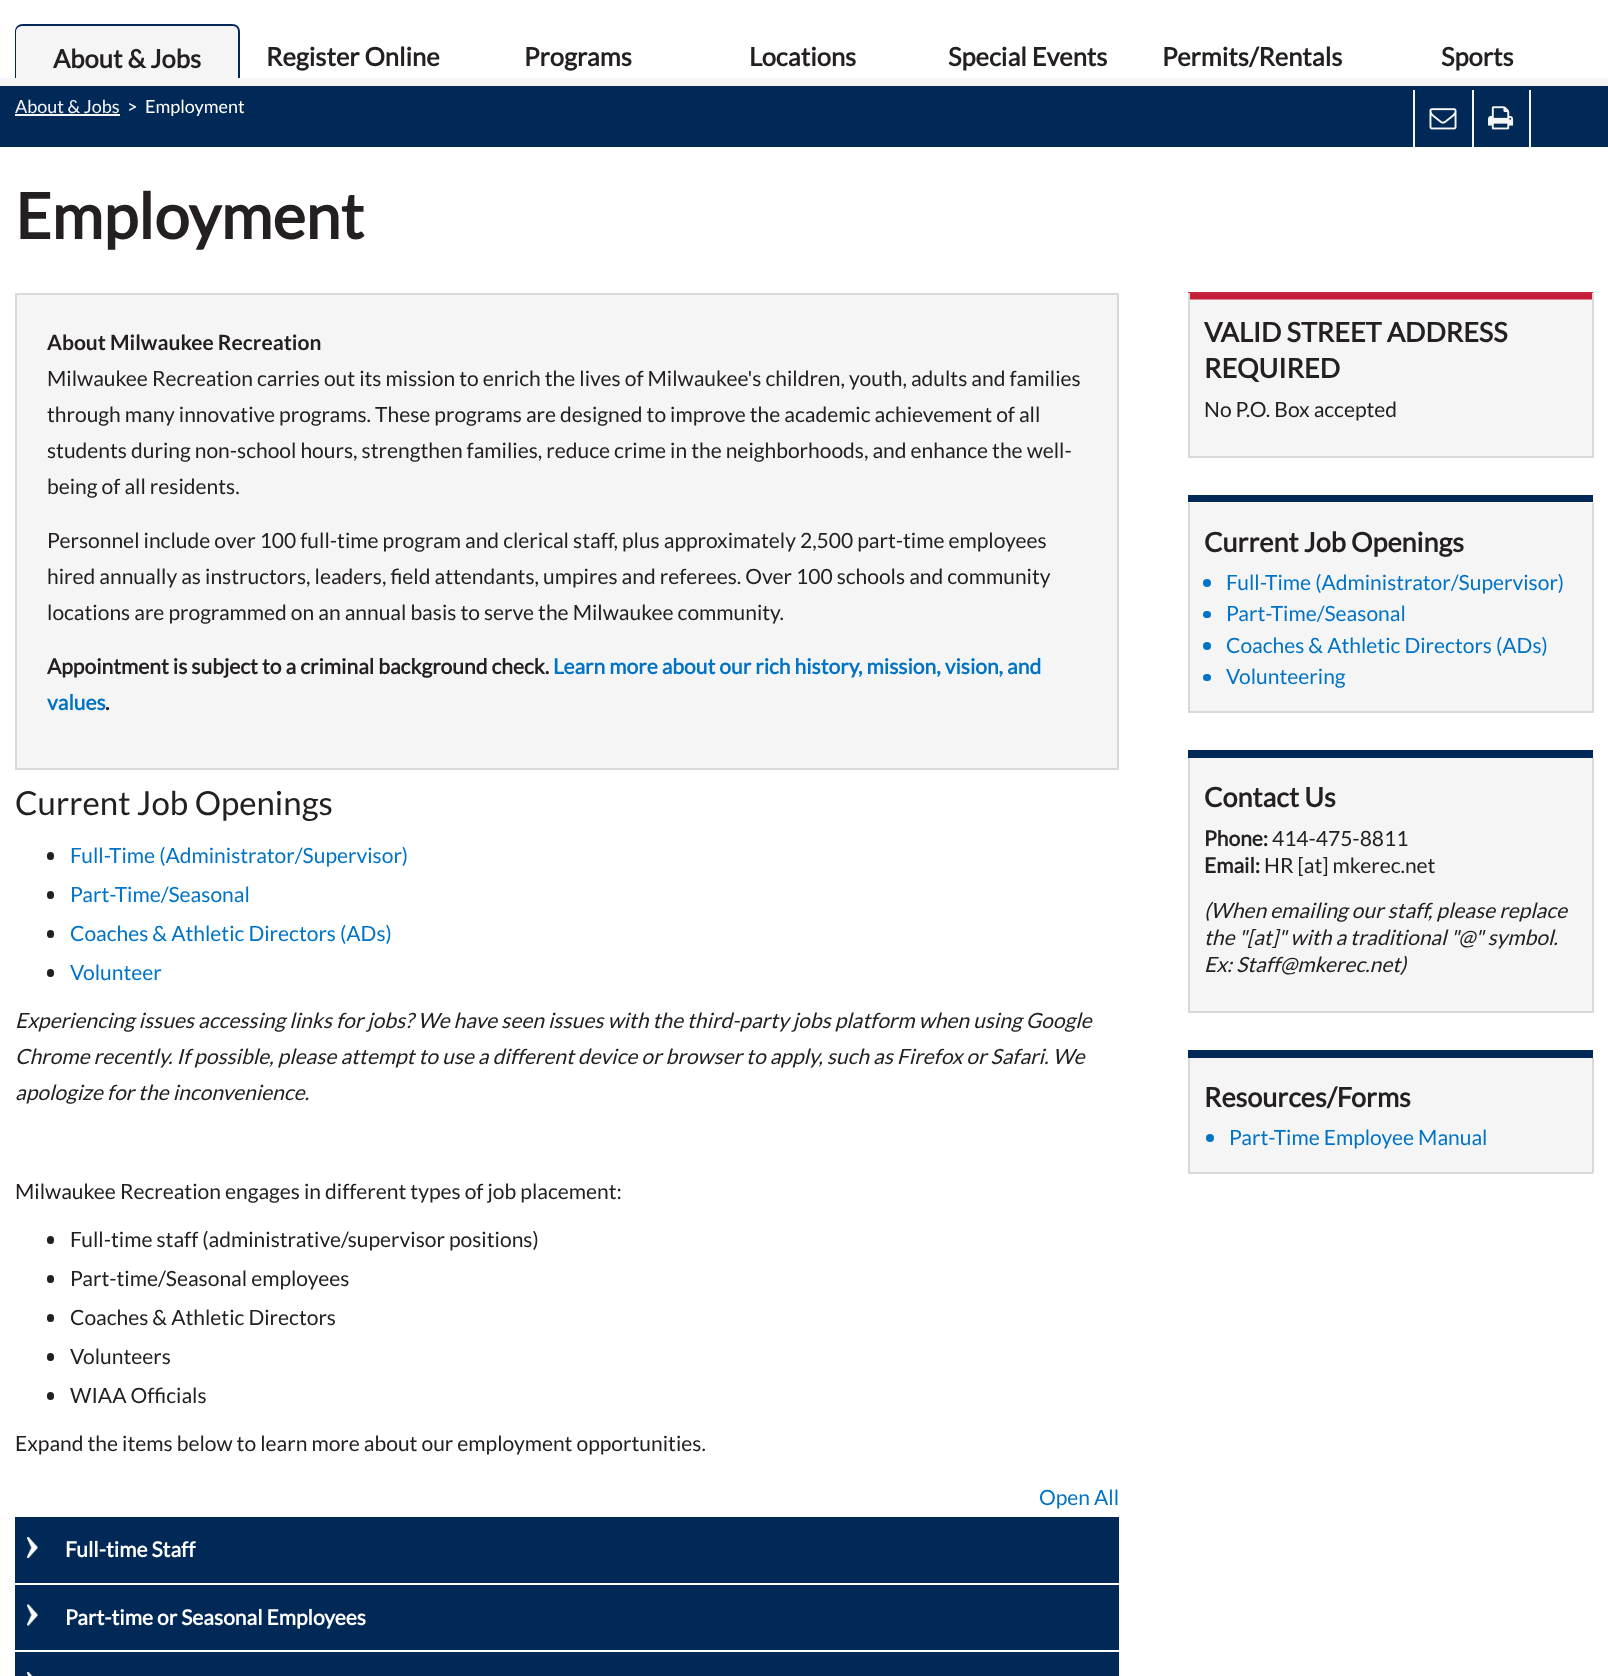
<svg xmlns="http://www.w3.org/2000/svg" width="1608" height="1676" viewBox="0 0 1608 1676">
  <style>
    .t1 { font: bold 25.5px 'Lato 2'; fill: #242021; }
    .t2 { font: 18px Lato; fill: #f5f5f5; }
    .t3 { font: 18px Lato; fill: #fff; }
    .t4 { font: bold 63px 'Lato 2'; fill: #242021; }
    .t5 { font: bold 21px Lato; fill: #242021; }
    .t6 { font: 21px Lato; fill: #242021; }
    .t7 { font: bold 21px 'Lato 2'; fill: #242021; }
    .t8 { font: bold 21px 'Lato 2'; fill: #0073c6; }
    .t9 { font: 33px Lato; fill: #242021; }
    .t10 { font: 21px Lato; fill: #0073c6; }
    .t11 { font: italic 21px Lato; fill: #242021; }
    .t12 { font: bold 21px 'Lato 2'; fill: #fff; }
    .t13 { font: bold 27px 'Lato 2'; fill: #242021; }
  </style>
  <rect width="100%" height="100%" fill="#fff"/>
  <rect x="0" y="78" width="1608" height="8" fill="#f5f5f5"/>
  <path d="M23 24H232C236.5 24 240 27.5 240 32V78H15V32C15 27.5 18.5 24 23 24Z" fill="#f5f5f5"/>
  <path d="M23 24H232C237 24 240 27 240 32V78H15V32C15 27 18 24 23 24ZM23 26H232C236 26 238 28 238 32V78H16V32C16 28 19 26 23 26Z" fill="#002957" fill-rule="evenodd"/>
  <text x="53" y="68" class="t1">About &amp; Jobs</text>
  <text x="266" y="66" class="t1">Register Online</text>
  <text x="524" y="66" class="t1">Programs</text>
  <text x="749" y="66" class="t1">Locations</text>
  <text x="948" y="66" class="t1">Special Events</text>
  <text x="1162" y="66" class="t1">Permits/Rentals</text>
  <text x="1441" y="66" class="t1">Sports</text>
  <rect x="0" y="86" width="1608" height="61" fill="#002957"/>
  <text x="15" y="113" class="t2">About &amp; Jobs</text>
  <rect x="15" y="114" width="105" height="2" fill="#f5f5f5"/>
  <text x="127" y="113" class="t3">&gt;</text>
  <text x="145" y="113" class="t3">Employment</text>
  <rect x="1472" y="90" width="2" height="57" fill="#f5f5f5"/>
  <rect x="1413" y="90" width="2" height="57" fill="#f5f5f5"/>
  <image x="1429" y="108" width="28" height="22" href="images/1.png"/>
  <rect x="1529" y="90" width="2" height="57" fill="#f5f5f5"/>
  <image x="1488" y="106" width="26" height="24" href="images/2.png"/>
  <text x="15" y="239" class="t4">Employment</text>
  <rect x="16" y="294" width="1102" height="475" fill="#f5f5f5" stroke="#d9d9d9" stroke-width="2"/>
  <text x="47" y="350" class="t5">About Milwaukee Recreation</text>
  <text x="47" y="386" class="t6">Milwaukee Recreation carries out its mission to enrich the lives of Milwaukee's children, youth, adults and families</text>
  <text x="47" y="422" class="t6">through many innovative programs. These programs are designed to improve the academic achievement of all</text>
  <text x="47" y="458" class="t6">students during non-school hours, strengthen families, reduce crime in the neighborhoods, and enhance the well-</text>
  <text x="47" y="494" class="t6">being of all residents.</text>
  <text x="47" y="548" class="t6">Personnel include over 100 full-time program and clerical staff, plus approximately 2,500 part-time employees</text>
  <text x="47" y="584" class="t6">hired annually as instructors, leaders, field attendants, umpires and referees. Over 100 schools and community</text>
  <text x="47" y="620" class="t6">locations are programmed on an annual basis to serve the Milwaukee community.</text>
  <text x="47" y="674" class="t7">Appointment is subject to a criminal background check.</text>
  <text x="553" y="674" class="t8">Learn more about our rich history, mission, vision, and</text>
  <text x="47" y="710" class="t8">values</text>
  <text x="105" y="710" class="t7">.</text>
  <text x="15" y="815" class="t9">Current Job Openings</text>
  <rect x="47" y="852" width="7" height="8" rx="3.5" fill="#231f20"/>
  <text x="70" y="863" class="t10">Full-Time (Administrator/Supervisor)</text>
  <rect x="47" y="891" width="7" height="8" rx="3.5" fill="#231f20"/>
  <text x="70" y="902" class="t10">Part-Time/Seasonal</text>
  <rect x="47" y="930" width="7" height="8" rx="3.5" fill="#231f20"/>
  <text x="70" y="941" class="t10">Coaches &amp; Athletic Directors (ADs)</text>
  <rect x="47" y="969" width="7" height="8" rx="3.5" fill="#231f20"/>
  <text x="70" y="980" class="t10">Volunteer</text>
  <text x="15" y="1028" class="t11">Experiencing issues accessing links for jobs? We have seen issues with the third-party jobs platform when using Google</text>
  <text x="15" y="1064" class="t11">Chrome recently. If possible, please attempt to use a different device or browser to apply, such as Firefox or Safari. We</text>
  <text x="15" y="1100" class="t11">apologize for the inconvenience.</text>
  <text x="15" y="1199" class="t6">Milwaukee Recreation engages in different types of job placement:</text>
  <rect x="47" y="1236" width="7" height="8" rx="3.5" fill="#231f20"/>
  <text x="70" y="1247" class="t6">Full-time staff (administrative/supervisor positions)</text>
  <rect x="47" y="1275" width="7" height="8" rx="3.5" fill="#231f20"/>
  <text x="70" y="1286" class="t6">Part-time/Seasonal employees</text>
  <rect x="47" y="1314" width="7" height="8" rx="3.5" fill="#231f20"/>
  <text x="70" y="1325" class="t6">Coaches &amp; Athletic Directors</text>
  <rect x="47" y="1353" width="7" height="8" rx="3.5" fill="#231f20"/>
  <text x="70" y="1364" class="t6">Volunteers</text>
  <rect x="47" y="1392" width="7" height="8" rx="3.5" fill="#231f20"/>
  <text x="70" y="1403" class="t6">WIAA Officials</text>
  <text x="15" y="1451" class="t6">Expand the items below to learn more about our employment opportunities.</text>
  <text x="1039" y="1505" class="t10">Open All</text>
  <rect x="15" y="1517" width="1104" height="66" fill="#002957"/>
  <image x="27" y="1537" width="11" height="21" href="images/3.png"/>
  <text x="65" y="1557" class="t12">Full-time Staff</text>
  <rect x="15" y="1585" width="1104" height="65" fill="#002957"/>
  <image x="27" y="1604" width="11" height="22" href="images/4.png"/>
  <text x="65" y="1625" class="t12">Part-time or Seasonal Employees</text>
  <rect x="15" y="1652" width="1104" height="24" fill="#002957"/>
  <image x="27" y="1672" width="6" height="4" href="images/5.png"/>
  <rect x="1190" y="299" width="402" height="157" fill="#f5f5f5"/>
  <image x="1188" y="292" width="405" height="8" href="images/6.png"/>
  <rect x="1592" y="293" width="2" height="165" fill="#d9d9d9"/>
  <rect x="1188" y="456" width="405" height="2" fill="#d9d9d9"/>
  <rect x="1188" y="293" width="2" height="165" fill="#d9d9d9"/>
  <text x="1204" y="342" class="t13">VALID STREET ADDRESS</text>
  <text x="1204" y="378" class="t13">REQUIRED</text>
  <text x="1204" y="417" class="t6">No P.O. Box accepted</text>
  <rect x="1188" y="495" width="405" height="7" fill="#002957"/>
  <rect x="1190" y="503" width="402" height="208" fill="#f5f5f5"/>
  <rect x="1592" y="503" width="2" height="210" fill="#d9d9d9"/>
  <rect x="1188" y="711" width="405" height="2" fill="#d9d9d9"/>
  <rect x="1188" y="503" width="2" height="210" fill="#d9d9d9"/>
  <text x="1204" y="552" class="t13">Current Job Openings</text>
  <circle cx="1207" cy="583" r="4" fill="#0073c6"/>
  <text x="1226" y="590" class="t10">Full-Time (Administrator/Supervisor)</text>
  <rect x="1203" y="611" width="8" height="7" rx="3.5" fill="#0073c6"/>
  <text x="1226" y="621" class="t10">Part-Time/Seasonal</text>
  <circle cx="1207" cy="646" r="4" fill="#0073c6"/>
  <text x="1226" y="653" class="t10">Coaches &amp; Athletic Directors (ADs)</text>
  <rect x="1203" y="674" width="8" height="7" rx="3.5" fill="#0073c6"/>
  <text x="1226" y="684" class="t10">Volunteering</text>
  <rect x="1188" y="750" width="405" height="8" fill="#002957"/>
  <rect x="1190" y="758" width="402" height="253" fill="#f5f5f5"/>
  <rect x="1592" y="758" width="2" height="255" fill="#d9d9d9"/>
  <rect x="1188" y="1011" width="405" height="2" fill="#d9d9d9"/>
  <rect x="1188" y="758" width="2" height="255" fill="#d9d9d9"/>
  <text x="1204" y="807" class="t13">Contact Us</text>
  <text x="1204" y="846" class="t7">Phone:</text>
  <text x="1272" y="846" class="t6">414-475-8811</text>
  <text x="1204" y="873" class="t7">Email:</text>
  <text x="1264" y="873" class="t6">HR [at] mkerec.net</text>
  <text x="1204" y="918" class="t11">(When emailing our staff, please replace</text>
  <text x="1204" y="945" class="t11">the "[at]" with a traditional "@" symbol.</text>
  <text x="1204" y="972" class="t11">Ex: Staff@mkerec.net)</text>
  <rect x="1188" y="1050" width="405" height="8" fill="#002957"/>
  <rect x="1190" y="1058" width="402" height="114" fill="#f5f5f5"/>
  <rect x="1592" y="1058" width="2" height="115" fill="#d9d9d9"/>
  <rect x="1188" y="1172" width="405" height="2" fill="#d9d9d9"/>
  <rect x="1188" y="1058" width="2" height="115" fill="#d9d9d9"/>
  <text x="1204" y="1107" class="t13">Resources/Forms</text>
  <circle cx="1210" cy="1138" r="4" fill="#0073c6"/>
  <text x="1229" y="1145" class="t10">Part-Time Employee Manual</text>
</svg>
